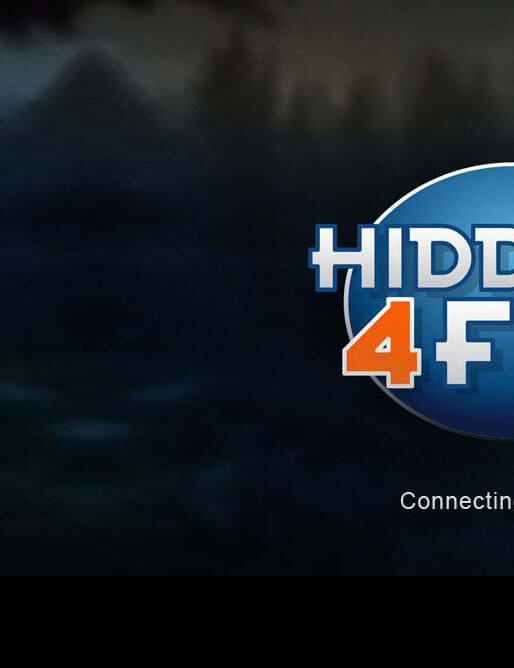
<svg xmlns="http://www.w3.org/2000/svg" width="514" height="668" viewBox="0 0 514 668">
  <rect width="100%" height="100%" fill="#000"/>
  <image x="0" y="0" width="514" height="576" href="images/1.png"/>
</svg>
